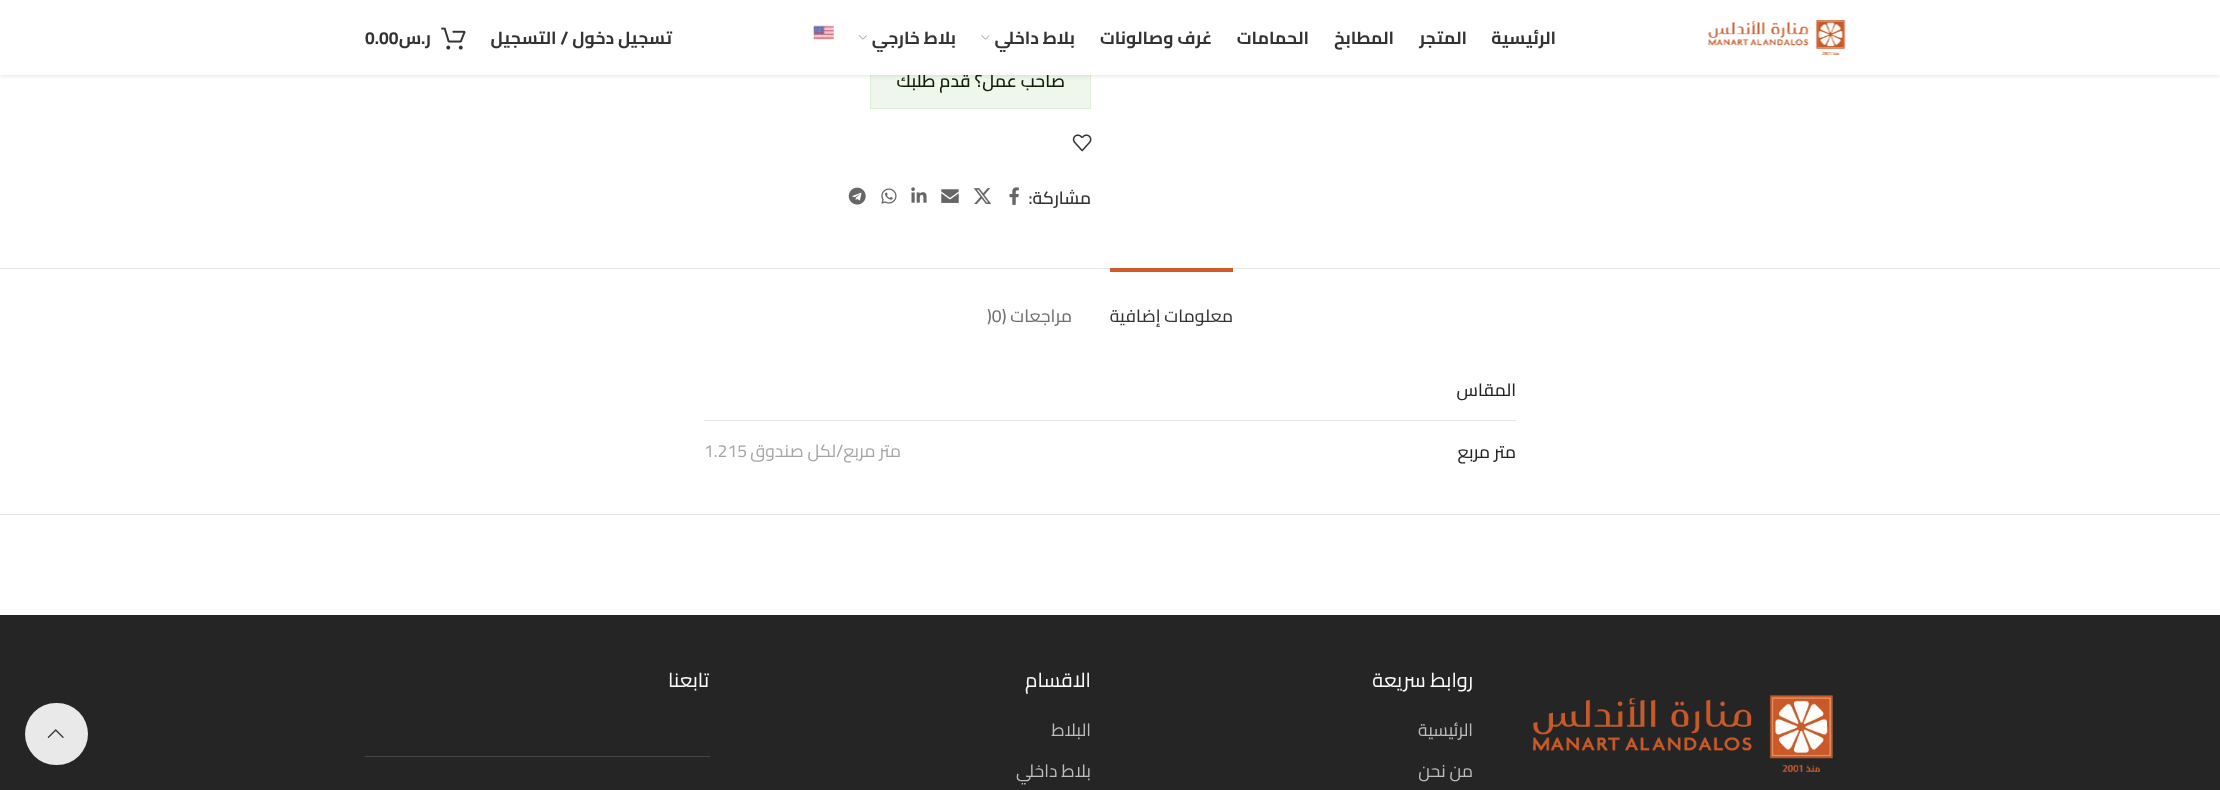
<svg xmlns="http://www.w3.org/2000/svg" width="2220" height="790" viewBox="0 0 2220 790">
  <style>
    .t1 { font: 600 17.5px Cairo; direction: rtl; fill: #0f1e06; }
    .t2 { font: bold 17.5px Cairo; direction: rtl; fill: #333; }
    .t3 { font: bold 17.5px Cairo; fill: #333; }
    .t4 { font: 600 17.5px Cairo; direction: rtl; fill: #333; }
    .t5 { font: 500 17.5px Cairo; direction: rtl; fill: #333; }
    .t6 { font: 500 17.5px Cairo; direction: rtl; fill: #707070; }
    .t7 { font: 500 17.5px Cairo; fill: #707070; }
    .t8 { font: 500 17.5px Cairo; direction: rtl; fill: #242424; }
    .t9 { font: 17.5px Cairo; direction: rtl; fill: #a5a5a5; }
    .t10 { font: 17.5px Cairo; fill: #a5a5a5; }
    .t11 { font: 20px Cairo; direction: rtl; fill: #fff; }
    .t12 { font: 17.5px Cairo; direction: rtl; fill: #bebebe; }
  </style>
  <rect width="100%" height="100%" fill="#fff"/>
  <rect x="871" y="75" width="219" height="33" fill="#eff6eb"/>
  <rect x="870.5" y="56.5" width="220" height="52" fill="none" stroke="#deeed4"/>
  <rect x="0" y="1" width="2220" height="75" fill="#0000001a" filter="blur(2px)"/>
  <text x="1065" y="87" class="t1">صاحب عمل؟ قدم طلبك</text>
  <rect x="0" y="0" width="2220" height="75" fill="#fff"/>
  <image x="1708" y="20" width="138" height="35" href="images/1.png"/>
  <text x="1556" y="44" class="t2">الرئيسية</text>
  <text x="1467" y="44" class="t2">المتجر</text>
  <text x="1394" y="44" class="t2">المطابخ</text>
  <text x="1309" y="44" class="t2">الحمامات</text>
  <text x="1212" y="44" class="t2">غرف وصالونات</text>
  <text x="1075" y="44" class="t2">بلاط داخلي</text>
  <image x="981" y="35" width="9" height="5" href="images/2.png"/>
  <text x="956" y="44" class="t2">بلاط خارجي</text>
  <image x="858" y="35" width="9" height="5" href="images/3.png"/>
  <image x="813" y="25" width="21" height="15" href="images/4.png"/>
  <text x="672" y="44" class="t2">تسجيل دخول / التسجيل</text>
  <image x="441" y="27" width="25" height="23" href="images/5.png"/>
  <text x="431" y="44" class="t2">ر.س</text>
  <text x="365" y="44" class="t3">0.00</text>
  <image x="1072" y="134" width="20" height="18" href="images/6.png"/>
  <text x="1091" y="204" class="t4">مشاركة:</text>
  <image x="1009" y="187" width="10" height="18" href="images/7.png"/>
  <image x="973" y="188" width="19" height="16" href="images/8.png"/>
  <image x="941" y="189" width="18" height="14" href="images/9.png"/>
  <image x="911" y="187" width="16" height="16" href="images/10.png"/>
  <image x="881" y="188" width="16" height="16" href="images/11.png"/>
  <image x="848" y="187" width="18" height="18" href="images/12.png"/>
  <rect x="0" y="268" width="2220" height="1" fill="#e4e4e4"/>
  <rect x="0" y="514" width="2220" height="1" fill="#e4e4e4"/>
  <rect x="1110" y="268" width="123" height="4" fill="#ce5b29"/>
  <text x="1233" y="322" class="t5">معلومات إضافية</text>
  <text x="1072" y="322" class="t6">مراجعات (</text>
  <text x="987" y="322" class="t7">)0</text>
  <rect x="704" y="420" width="812" height="1" fill="#e4e4e4"/>
  <text x="1516" y="396" class="t8">المقاس</text>
  <text x="1516" y="458" class="t8">متر مربع</text>
  <text x="901" y="457" class="t9">متر مربع/لكل صندوق</text>
  <text x="704" y="457" class="t10">1.215</text>
  <rect x="0" y="615" width="2220" height="175" fill="#252525"/>
  <image x="1532" y="695" width="301" height="77" href="images/13.png"/>
  <text x="1473" y="687" class="t11">روابط سريعة</text>
  <text x="1473" y="736" class="t12">الرئيسية</text>
  <text x="1473" y="777" class="t12">من نحن</text>
  <text x="1091" y="687" class="t11">الاقسام</text>
  <text x="1091" y="736" class="t12">البلاط</text>
  <text x="1091" y="777" class="t12">بلاط داخلي</text>
  <rect x="365" y="756" width="345" height="1" fill="#464646"/>
  <text x="709" y="687" class="t11">تابعنا</text>
  <rect x="25" y="703" width="63" height="62" rx="31" fill="#ffffffe6"/>
  <image x="47" y="729" width="17" height="9" href="images/14.png"/>
</svg>
